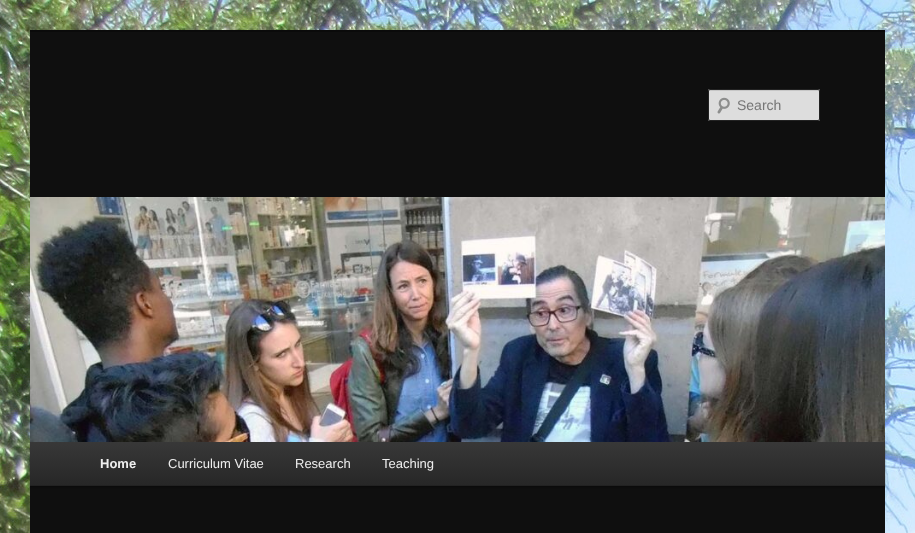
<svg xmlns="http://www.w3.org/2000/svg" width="915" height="533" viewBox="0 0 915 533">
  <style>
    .t1 { font: 14px Liberation Sans; fill: #757575; }
    .t2 { font: bold 13px Liberation Sans; fill: #eee; }
    .t3 { font: 13px Liberation Sans; fill: #eee; }
  </style>
  <defs>
    <linearGradient id="g1" gradientUnits="userSpaceOnUse" x1="458" y1="442" x2="458" y2="485"><stop offset="0" stop-color="#383838"/><stop offset="1" stop-color="#272727"/></linearGradient>
  </defs>
  <rect width="100%" height="100%" fill="#fff"/>
  <image x="0" y="0" width="915" height="533" href="images/1.png"/>
  <rect x="30" y="32" width="855" height="501" fill="#0f0f0f"/>
  <rect x="30" y="30" width="855" height="2" fill="#0a0a0a"/>
  <rect x="708" y="89" width="112" height="32" rx="2" fill="#ddd"/>
  <image x="717" y="97" width="13" height="17" href="images/2.png"/>
  <path d="M710 91H819V92L818 90H728C724 90 709 85 709 92C709 91 709 91 710 91Z" fill="#0000001a"/>
  <rect x="708.5" y="89.5" width="111" height="31" rx="1.5" fill="none" stroke="#222"/>
  <text x="737" y="110" class="t1">Search</text>
  <rect x="30" y="443" width="855" height="44" fill="#00000066" filter="blur(1px)"/>
  <image x="30" y="197" width="855" height="245" href="images/3.png"/>
  <rect x="30" y="442" width="855" height="43" fill="url(#g1)"/>
  <rect x="30" y="485" width="855" height="1" fill="#222"/>
  <text x="100" y="468" class="t2">Home</text>
  <text x="168" y="468" class="t3">Curriculum Vitae</text>
  <text x="295" y="468" class="t3">Research</text>
  <text x="382" y="468" class="t3">Teaching</text>
</svg>
